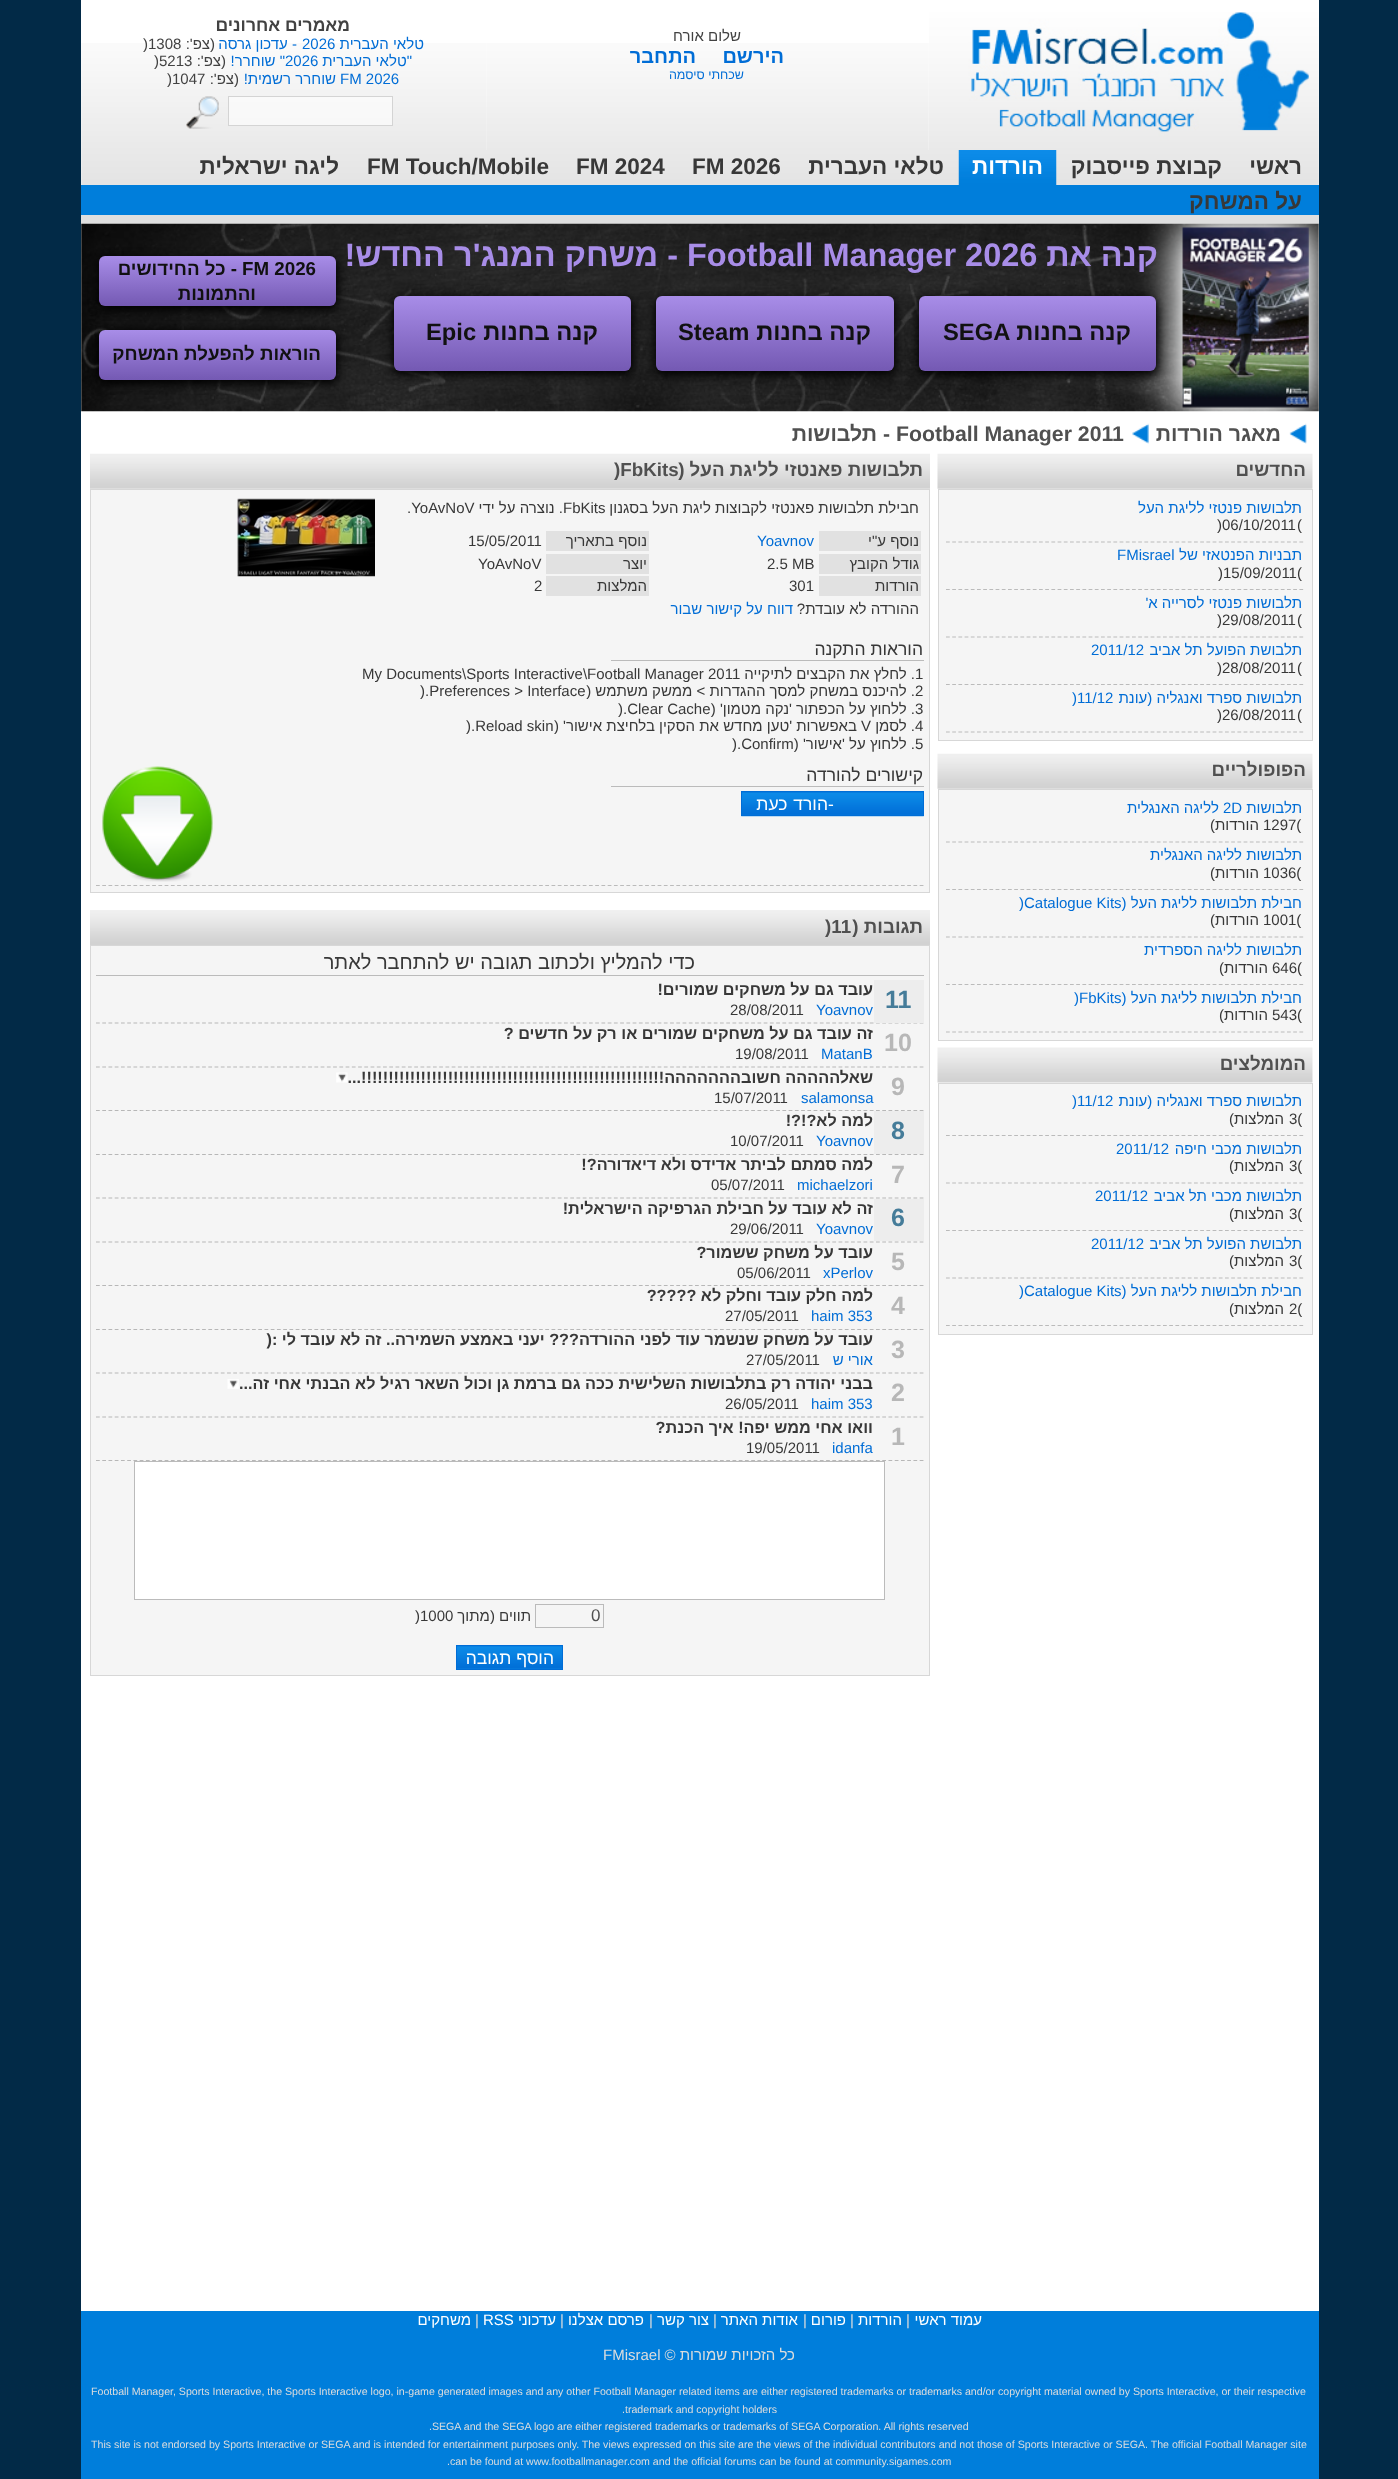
<svg xmlns="http://www.w3.org/2000/svg" width="1398" height="2479" viewBox="0 0 1398 2479">
  <style>
    .t1 { font: 15px Liberation Sans; direction: rtl; fill: #424242; }
    .t2 { font: bold 20px Liberation Sans; direction: rtl; fill: #006dd6; }
    .t3 { font: 12.5px Liberation Sans; direction: rtl; fill: #006dd6; }
    .t4 { font: bold 17.5px Liberation Sans; direction: rtl; fill: #424242; }
    .t5 { font: 15px Liberation Sans; direction: rtl; fill: #006dd6; }
    .t6 { font: 15px Liberation Sans; fill: #006dd6; }
    .t7 { font: 15px Liberation Sans; fill: #424242; }
    .t8 { font: bold 22.5px Liberation Sans; direction: rtl; fill: #383838; }
    .t9 { font: bold 22.5px Liberation Sans; direction: rtl; fill: #fff; }
    .t10 { font: bold 22.5px Liberation Sans; fill: #383838; }
    .t11 { font: bold 32.5px Liberation Sans; direction: rtl; fill: #a88de8; }
    .t12 { font: bold 32.5px Liberation Sans; fill: #a88de8; }
    .t13 { font: bold 18.75px Liberation Sans; fill: #111; }
    .t14 { font: bold 18.75px Liberation Sans; direction: rtl; fill: #111; }
    .t15 { font: bold 23.75px Liberation Sans; direction: rtl; fill: #111; }
    .t16 { font: bold 23.75px Liberation Sans; fill: #111; }
    .t17 { font: bold 21.25px Liberation Sans; direction: rtl; fill: #505050; }
    .t18 { font: bold 21.25px Liberation Sans; fill: #505050; }
    .t19 { font: bold 18.75px Liberation Sans; direction: rtl; fill: #505050; }
    .t20 { font: 15px Liberation Sans; fill: #383838; }
    .t21 { font: 15px Liberation Sans; direction: rtl; fill: #383838; }
    .t22 { font: bold 18.75px Liberation Sans; fill: #505050; }
    .t23 { font: 17.5px Liberation Sans; direction: rtl; fill: #383838; }
    .t24 { font: 17.5px Liberation Sans; fill: #fff; }
    .t25 { font: 17.5px Liberation Sans; direction: rtl; fill: #fff; }
    .t26 { font: 20px Liberation Sans; direction: rtl; fill: #383838; }
    .t27 { font: bold 25px Liberation Sans; fill: #457c99; }
    .t28 { font: bold 16.25px Liberation Sans; direction: rtl; fill: #383838; }
    .t29 { font: bold 25px Liberation Sans; fill: #b7b7b7; }
    .t30 { font: 17px Liberation Sans; fill: #505050; }
    .t31 { font: 15px Liberation Sans; direction: rtl; fill: #fff; }
    .t32 { font: 15px Liberation Sans; fill: #ddd; }
    .t33 { font: 15px Liberation Sans; fill: #fff; }
    .t34 { font: 15px Liberation Sans; direction: rtl; fill: #ddd; }
    .t35 { font: 10.62px Liberation Sans; fill: #ddd; }
  </style>
  <defs>
    <linearGradient id="g1" gradientUnits="userSpaceOnUse" x1="218" y1="256" x2="218" y2="306"><stop offset="0" stop-color="#a88de8"/><stop offset="1" stop-color="#7459b3"/></linearGradient>
    <linearGradient id="g2" gradientUnits="userSpaceOnUse" x1="1038" y1="296" x2="1038" y2="371"><stop offset="0" stop-color="#a88de8"/><stop offset="1" stop-color="#7459b3"/></linearGradient>
    <linearGradient id="g3" gradientUnits="userSpaceOnUse" x1="775" y1="296" x2="775" y2="371"><stop offset="0" stop-color="#a88de8"/><stop offset="1" stop-color="#7459b3"/></linearGradient>
    <linearGradient id="g4" gradientUnits="userSpaceOnUse" x1="513" y1="296" x2="513" y2="371"><stop offset="0" stop-color="#a88de8"/><stop offset="1" stop-color="#7459b3"/></linearGradient>
    <linearGradient id="g5" gradientUnits="userSpaceOnUse" x1="218" y1="330" x2="218" y2="380"><stop offset="0" stop-color="#a88de8"/><stop offset="1" stop-color="#7459b3"/></linearGradient>
  </defs>
  <rect width="100%" height="100%" fill="#022a47"/>
  <rect x="81" y="0" width="1238" height="2311" fill="#fff"/>
  <image x="929" y="12" width="390" height="138" href="images/1.png"/>
  <image x="81" y="43" width="406" height="107" href="images/3.png"/>
  <image x="486" y="43" width="443" height="107" href="images/2.png"/>
  <text x="741" y="41" class="t1">שלום אורח</text>
  <text x="784" y="63" class="t2">הירשם</text>
  <text x="696" y="63" class="t2">התחבר</text>
  <text x="744" y="79" class="t3">שכחתי סיסמה</text>
  <text x="350" y="31" class="t4">מאמרים אחרונים</text>
  <text x="424" y="49" class="t5">טלאי העברית</text>
  <text x="302" y="49" class="t6">2026</text>
  <text x="297" y="49" class="t5">- עדכון גרסה</text>
  <text x="215" y="49" class="t1">(צפ':</text>
  <text x="143" y="49" class="t7">)1308</text>
  <text x="412" y="66" class="t5">"טלאי העברית</text>
  <text x="285" y="66" class="t6">2026</text>
  <text x="285" y="66" class="t5">" שוחרר!</text>
  <text x="226" y="66" class="t1">(צפ':</text>
  <text x="154" y="66" class="t7">)5213</text>
  <text x="340" y="84" class="t6">FM 2026</text>
  <text x="336" y="84" class="t5">שוחרר רשמית!</text>
  <text x="239" y="84" class="t1">(צפ':</text>
  <text x="167" y="84" class="t7">)1047</text>
  <rect x="228.5" y="96.5" width="164" height="29" fill="#ffffff99" stroke="#d4d4d4"/>
  <image x="186" y="96" width="33" height="33" href="images/4.png"/>
  <image x="81" y="150" width="1238" height="35" href="images/5.png"/>
  <text x="1302" y="174" class="t8">ראשי</text>
  <text x="1222" y="174" class="t8">קבוצת פייסבוק</text>
  <image x="958" y="150" width="99" height="35" href="images/6.png"/>
  <text x="1043" y="174" class="t9">הורדות</text>
  <text x="944" y="174" class="t8">טלאי העברית</text>
  <text x="692" y="174" class="t10">FM 2026</text>
  <text x="576" y="174" class="t10">FM 2024</text>
  <text x="367" y="174" class="t10">FM Touch/Mobile</text>
  <text x="339" y="174" class="t8">ליגה ישראלית</text>
  <rect x="81" y="185" width="1238" height="30" fill="#007edb"/>
  <text x="1302" y="209" class="t8">על המשחק</text>
  <rect x="81" y="215" width="1238" height="9" fill="#dfdfdf"/>
  <image x="81" y="223" width="1238" height="189" href="images/7.png"/>
  <text x="1158" y="266" class="t11">קנה את</text>
  <text x="687" y="266" class="t12">Football Manager 2026</text>
  <text x="678" y="266" class="t11">- משחק המנג'ר החדש!</text>
  <rect x="98" y="258" width="240" height="52" rx="8" fill="#000" filter="blur(5px)"/>
  <rect x="99" y="256" width="237" height="50" rx="6" fill="url(#g1)"/>
  <text x="242" y="275" class="t13">FM 2026</text>
  <text x="237" y="275" class="t14">- כל החידושים</text>
  <text x="256" y="300" class="t14">והתמונות</text>
  <rect x="918" y="298" width="240" height="77" rx="8" fill="#000" filter="blur(5px)"/>
  <rect x="919" y="296" width="237" height="75" rx="6" fill="url(#g2)"/>
  <text x="1131" y="340" class="t15">קנה בחנות</text>
  <text x="943" y="340" class="t16">SEGA</text>
  <rect x="655" y="298" width="240" height="77" rx="8" fill="#000" filter="blur(5px)"/>
  <rect x="656" y="296" width="238" height="75" rx="6" fill="url(#g3)"/>
  <text x="871" y="340" class="t15">קנה בחנות</text>
  <text x="678" y="340" class="t16">Steam</text>
  <rect x="393" y="298" width="240" height="77" rx="8" fill="#000" filter="blur(5px)"/>
  <rect x="394" y="296" width="237" height="75" rx="6" fill="url(#g4)"/>
  <text x="598" y="340" class="t15">קנה בחנות</text>
  <text x="426" y="340" class="t16">Epic</text>
  <rect x="98" y="331" width="240" height="53" rx="8" fill="#000" filter="blur(5px)"/>
  <rect x="99" y="330" width="237" height="50" rx="6" fill="url(#g5)"/>
  <text x="321" y="360" class="t14">הוראות להפעלת המשחק</text>
  <image x="1289" y="423" width="18" height="21" href="images/8.png"/>
  <text x="1281" y="441" class="t17">מאגר הורדות</text>
  <image x="1132" y="423" width="17" height="21" href="images/9.png"/>
  <text x="896" y="441" class="t18">Football Manager 2011</text>
  <text x="890" y="441" class="t17">- תלבושות</text>
  <image x="937" y="453" width="376" height="36" href="images/10.png"/>
  <text x="1306" y="476" class="t19">החדשים</text>
  <rect x="938.5" y="489.5" width="374" height="251" fill="#f5f5f5" stroke="#d7d7d7"/>
  <text x="1302" y="513" class="t5">תלבושות פנטזי לליגת העל</text>
  <text x="1297" y="530" class="t20">(</text>
  <text x="1217" y="530" class="t20">)06/10/2011</text>
  <path d="M946 542H1304" fill="none" stroke="#bbb" stroke-width="1.2" stroke-dasharray="3.75 2.45"/>
  <text x="1302" y="560" class="t5">תבניות הפנטאזי של</text>
  <text x="1117" y="560" class="t6">FMisrael</text>
  <text x="1218" y="578" class="t20">)15/09/2011(</text>
  <path d="M946 589.5H1304" fill="none" stroke="#bbb" stroke-width="1.2" stroke-dasharray="3.75 2.45"/>
  <text x="1302" y="608" class="t5">תלבושות פנטזי לסרייה א'</text>
  <text x="1297" y="625" class="t20">(</text>
  <text x="1217" y="625" class="t20">)29/08/2011</text>
  <path d="M946 637H1304" fill="none" stroke="#bbb" stroke-width="1.2" stroke-dasharray="3.75 2.45"/>
  <text x="1302" y="655" class="t5">תלבושת הפועל תל אביב</text>
  <text x="1091" y="655" class="t6">2011/12</text>
  <text x="1297" y="673" class="t20">(</text>
  <text x="1217" y="673" class="t20">)28/08/2011</text>
  <path d="M946 684.5H1304" fill="none" stroke="#bbb" stroke-width="1.2" stroke-dasharray="3.75 2.45"/>
  <text x="1302" y="703" class="t5">תלבושות ספרד ואנגליה (עונת</text>
  <text x="1072" y="703" class="t6">)11/12</text>
  <text x="1297" y="720" class="t20">(</text>
  <text x="1217" y="720" class="t20">)26/08/2011</text>
  <path d="M946 732H1304" fill="none" stroke="#bbb" stroke-width="1.2" stroke-dasharray="3.75 2.45"/>
  <image x="937" y="753" width="376" height="36" href="images/10.png"/>
  <text x="1306" y="776" class="t19">הפופולריים</text>
  <rect x="938.5" y="789.5" width="374" height="251" fill="#f5f5f5" stroke="#d7d7d7"/>
  <text x="1302" y="813" class="t5">תלבושות</text>
  <text x="1223" y="813" class="t6">2D</text>
  <text x="1219" y="813" class="t5">לליגה האנגלית</text>
  <text x="1263" y="830" class="t20">1297(</text>
  <text x="1259" y="830" class="t21">הורדות)</text>
  <path d="M946 842H1304" fill="none" stroke="#bbb" stroke-width="1.2" stroke-dasharray="3.75 2.45"/>
  <text x="1302" y="860" class="t5">תלבושות לליגה האנגלית</text>
  <text x="1263" y="878" class="t20">1036(</text>
  <text x="1259" y="878" class="t21">הורדות)</text>
  <path d="M946 889.5H1304" fill="none" stroke="#bbb" stroke-width="1.2" stroke-dasharray="3.75 2.45"/>
  <text x="1302" y="908" class="t5">חבילת תלבושות לליגת העל (</text>
  <text x="1019" y="908" class="t6">)Catalogue Kits</text>
  <text x="1263" y="925" class="t20">1001(</text>
  <text x="1259" y="925" class="t21">הורדות)</text>
  <path d="M946 937H1304" fill="none" stroke="#bbb" stroke-width="1.2" stroke-dasharray="3.75 2.45"/>
  <text x="1302" y="955" class="t5">תלבושות לליגה הספרדית</text>
  <text x="1272" y="973" class="t20">646(</text>
  <text x="1268" y="973" class="t21">הורדות)</text>
  <path d="M946 984.5H1304" fill="none" stroke="#bbb" stroke-width="1.2" stroke-dasharray="3.75 2.45"/>
  <text x="1302" y="1003" class="t5">חבילת תלבושות לליגת העל (</text>
  <text x="1074" y="1003" class="t6">)FbKits</text>
  <text x="1272" y="1020" class="t20">543(</text>
  <text x="1268" y="1020" class="t21">הורדות)</text>
  <path d="M946 1032H1304" fill="none" stroke="#bbb" stroke-width="1.2" stroke-dasharray="3.75 2.45"/>
  <image x="937" y="1047" width="376" height="36" href="images/11.png"/>
  <text x="1306" y="1070" class="t19">המומלצים</text>
  <rect x="938.5" y="1083.5" width="374" height="251" fill="#f5f5f5" stroke="#d7d7d7"/>
  <text x="1302" y="1106" class="t5">תלבושות ספרד ואנגליה (עונת</text>
  <text x="1072" y="1106" class="t6">)11/12</text>
  <text x="1289" y="1124" class="t20">3(</text>
  <text x="1284" y="1124" class="t21">המלצות)</text>
  <path d="M946 1135.5H1304" fill="none" stroke="#bbb" stroke-width="1.2" stroke-dasharray="3.75 2.45"/>
  <text x="1302" y="1154" class="t5">תלבושות מכבי חיפה</text>
  <text x="1116" y="1154" class="t6">2011/12</text>
  <text x="1289" y="1171" class="t20">3(</text>
  <text x="1284" y="1171" class="t21">המלצות)</text>
  <path d="M946 1183H1304" fill="none" stroke="#bbb" stroke-width="1.2" stroke-dasharray="3.75 2.45"/>
  <text x="1302" y="1201" class="t5">תלבושות מכבי תל אביב</text>
  <text x="1095" y="1201" class="t6">2011/12</text>
  <text x="1289" y="1219" class="t20">3(</text>
  <text x="1284" y="1219" class="t21">המלצות)</text>
  <path d="M946 1230.5H1304" fill="none" stroke="#bbb" stroke-width="1.2" stroke-dasharray="3.75 2.45"/>
  <text x="1302" y="1249" class="t5">תלבושת הפועל תל אביב</text>
  <text x="1091" y="1249" class="t6">2011/12</text>
  <text x="1289" y="1266" class="t20">3(</text>
  <text x="1284" y="1266" class="t21">המלצות)</text>
  <path d="M946 1278H1304" fill="none" stroke="#bbb" stroke-width="1.2" stroke-dasharray="3.75 2.45"/>
  <text x="1302" y="1296" class="t5">חבילת תלבושות לליגת העל (</text>
  <text x="1019" y="1296" class="t6">)Catalogue Kits</text>
  <text x="1289" y="1314" class="t20">2(</text>
  <text x="1284" y="1314" class="t21">המלצות)</text>
  <path d="M946 1325.5H1304" fill="none" stroke="#bbb" stroke-width="1.2" stroke-dasharray="3.75 2.45"/>
  <image x="90" y="453" width="840" height="36" href="images/12.png"/>
  <text x="923" y="476" class="t19">תלבושות פאנטזי לליגת העל (</text>
  <text x="614" y="476" class="t22">)FbKits</text>
  <rect x="90.5" y="489.5" width="839" height="403" fill="#f5f5f5" stroke="#d7d7d7"/>
  <text x="919" y="513" class="t21">חבילת תלבושות פאנטזי לקבוצות ליגת העל בסגנון</text>
  <text x="563" y="513" class="t20">FbKits</text>
  <text x="563" y="513" class="t21">. נוצרה על ידי</text>
  <text x="407" y="513" class="t20">.YoAvNoV</text>
  <image x="237" y="498" width="138" height="79" href="images/13.png"/>
  <rect x="819" y="531" width="102" height="20" fill="#e1e1e1"/>
  <text x="919" y="546" class="t21">נוסף ע"י</text>
  <text x="757" y="546" class="t6">Yoavnov</text>
  <rect x="546" y="531" width="103" height="20" fill="#e1e1e1"/>
  <text x="647" y="546" class="t21">נוסף בתאריך</text>
  <text x="468" y="546" class="t20">15/05/2011</text>
  <rect x="819" y="554" width="102" height="20" fill="#e1e1e1"/>
  <text x="919" y="569" class="t21">גודל הקובץ</text>
  <text x="767" y="569" class="t20">2.5 MB</text>
  <rect x="546" y="554" width="103" height="20" fill="#e1e1e1"/>
  <text x="647" y="569" class="t21">יוצר</text>
  <text x="478" y="569" class="t20">YoAvNoV</text>
  <rect x="819" y="576" width="102" height="20" fill="#e1e1e1"/>
  <text x="919" y="591" class="t21">הורדות</text>
  <text x="789" y="591" class="t20">301</text>
  <rect x="546" y="576" width="103" height="20" fill="#e1e1e1"/>
  <text x="647" y="591" class="t21">המלצות</text>
  <text x="534" y="591" class="t20">2</text>
  <text x="919" y="614" class="t21">ההורדה לא עובדת?</text>
  <text x="793" y="614" class="t5">דווח על קישור שבור</text>
  <text x="923" y="655" class="t23">הוראות התקנה</text>
  <rect x="611" y="660" width="313" height="1" fill="#bbb"/>
  <text x="915" y="679" class="t20">1</text>
  <text x="915" y="679" class="t21">. לחלץ את הקבצים לתיקייה</text>
  <text x="362" y="679" class="t20">My Documents\Sports Interactive\Football Manager 2011</text>
  <text x="915" y="696" class="t20">2</text>
  <text x="915" y="696" class="t21">. להיכנס במשחק למסך ההגדרות &gt; ממשק משתמש (</text>
  <text x="420" y="696" class="t20">).Preferences &gt; Interface</text>
  <text x="915" y="714" class="t20">3</text>
  <text x="915" y="714" class="t21">. ללחוץ על הכפתור 'נקה מטמון' (</text>
  <text x="618" y="714" class="t20">).Clear Cache</text>
  <text x="915" y="731" class="t20">4</text>
  <text x="915" y="731" class="t21">. לסמן</text>
  <text x="861" y="731" class="t20">V</text>
  <text x="857" y="731" class="t21">באפשרות 'טען מחדש את הסקין בלחיצת אישור' (</text>
  <text x="466" y="731" class="t20">).Reload skin</text>
  <text x="915" y="749" class="t20">5</text>
  <text x="915" y="749" class="t21">. ללחוץ על 'אישור' (</text>
  <text x="732" y="749" class="t20">).Confirm</text>
  <text x="923" y="781" class="t23">קישורים להורדה</text>
  <rect x="611" y="786" width="313" height="1" fill="#bbb"/>
  <image x="741" y="792" width="183" height="25" href="images/14.png"/>
  <rect x="741.5" y="791.5" width="182" height="24" fill="none" stroke="#006dd6"/>
  <text x="828" y="810" class="t24">-</text>
  <text x="828" y="810" word-spacing="1" class="t25">הורד כעת</text>
  <image x="102" y="766" width="111" height="116" href="images/15.png"/>
  <path d="M96 885.5H924" fill="none" stroke="#bbb" stroke-width="1.2" stroke-dasharray="3.75 2.49"/>
  <image x="90" y="910" width="840" height="35" href="images/16.png"/>
  <text x="923" y="933" class="t19">תגובות (</text>
  <text x="825" y="933" class="t22">)11</text>
  <rect x="90.5" y="945.5" width="839" height="730" fill="#f5f5f5" stroke="#d7d7d7"/>
  <text x="695" y="969" class="t26">כדי להמליץ ולכתוב תגובה יש להתחבר לאתר</text>
  <rect x="96" y="975" width="828" height="1" fill="#bbb"/>
  <path d="M96 1023H924" fill="none" stroke="#b7b7b7" stroke-width="1.2" stroke-dasharray="3.75 2.49"/>
  <rect x="874" y="980" width="50" height="43" fill="#ededed"/>
  <text x="885" y="1008" class="t27">11</text>
  <text x="873" y="995" class="t28">עובד גם על משחקים שמורים!</text>
  <text x="816" y="1015" class="t6">Yoavnov</text>
  <text x="730" y="1015" class="t20">28/08/2011</text>
  <text x="884" y="1051" class="t29">10</text>
  <text x="873" y="1039" class="t28">זה עובד גם על משחקים שמורים או רק על חדשים ?</text>
  <text x="821" y="1059" class="t6">MatanB</text>
  <text x="735" y="1059" class="t20">19/08/2011</text>
  <path d="M96 1067H924" fill="none" stroke="#b7b7b7" stroke-width="1.2" stroke-dasharray="3.75 2.49"/>
  <text x="891" y="1095" class="t29">9</text>
  <text x="873" y="1083" class="t28">שאלההההה חשובההההההה!!!!!!!!!!!!!!!!!!!!!!!!!!!!!!!!!!!!!!!!!!!!!!!!!!!!!!!!...</text>
  <image x="336" y="1072" width="12" height="11" href="images/17.png"/>
  <text x="801" y="1103" class="t6">salamonsa</text>
  <text x="714" y="1103" class="t20">15/07/2011</text>
  <path d="M96 1110.5H924" fill="none" stroke="#b7b7b7" stroke-width="1.2" stroke-dasharray="3.75 2.49"/>
  <path d="M96 1154.5H924" fill="none" stroke="#b7b7b7" stroke-width="1.2" stroke-dasharray="3.75 2.49"/>
  <rect x="874" y="1111" width="50" height="43" fill="#ededed"/>
  <text x="891" y="1139" class="t27">8</text>
  <text x="873" y="1126" class="t28">למה לא?!?!</text>
  <text x="816" y="1146" class="t6">Yoavnov</text>
  <text x="730" y="1146" class="t20">10/07/2011</text>
  <text x="891" y="1183" class="t29">7</text>
  <text x="873" y="1170" class="t28">למה סמתם לביתר אדידס ולא דיאדורה?!</text>
  <text x="797" y="1190" class="t6">michaelzori</text>
  <text x="711" y="1190" class="t20">05/07/2011</text>
  <path d="M96 1198H924" fill="none" stroke="#b7b7b7" stroke-width="1.2" stroke-dasharray="3.75 2.49"/>
  <rect x="874" y="1199" width="50" height="42" fill="#ededed"/>
  <text x="891" y="1226" class="t27">6</text>
  <text x="873" y="1214" class="t28">זה לא עובד על חבילת הגרפיקה הישראלית!</text>
  <text x="816" y="1234" class="t6">Yoavnov</text>
  <text x="730" y="1234" class="t20">29/06/2011</text>
  <path d="M96 1242H924" fill="none" stroke="#b7b7b7" stroke-width="1.2" stroke-dasharray="3.75 2.49"/>
  <text x="891" y="1270" class="t29">5</text>
  <text x="873" y="1258" class="t28">עובד על משחק ששמור?</text>
  <text x="823" y="1278" class="t6">xPerlov</text>
  <text x="737" y="1278" class="t20">05/06/2011</text>
  <path d="M96 1285.5H924" fill="none" stroke="#b7b7b7" stroke-width="1.2" stroke-dasharray="3.75 2.49"/>
  <text x="891" y="1314" class="t29">4</text>
  <text x="873" y="1301" class="t28">למה חלק עובד וחלק לא ?????</text>
  <text x="811" y="1321" class="t6">haim 353</text>
  <text x="725" y="1321" class="t20">27/05/2011</text>
  <path d="M96 1329.5H924" fill="none" stroke="#b7b7b7" stroke-width="1.2" stroke-dasharray="3.75 2.49"/>
  <text x="891" y="1358" class="t29">3</text>
  <text x="873" y="1345" class="t28">עובד על משחק שנשמר עוד לפני ההורדה??? יעני באמצע השמירה.. זה לא עובד לי :(</text>
  <text x="873" y="1365" class="t5">אורי ש</text>
  <text x="746" y="1365" class="t20">27/05/2011</text>
  <path d="M96 1373H924" fill="none" stroke="#b7b7b7" stroke-width="1.2" stroke-dasharray="3.75 2.49"/>
  <text x="891" y="1401" class="t29">2</text>
  <text x="873" y="1389" class="t28">בבני יהודה רק בתלבושות השלישית ככה גם ברמת גן וכול השאר רגיל לא הבנתי אחי זה...</text>
  <image x="227" y="1379" width="12" height="10" href="images/18.png"/>
  <text x="811" y="1409" class="t6">haim 353</text>
  <text x="725" y="1409" class="t20">26/05/2011</text>
  <path d="M96 1417H924" fill="none" stroke="#b7b7b7" stroke-width="1.2" stroke-dasharray="3.75 2.49"/>
  <text x="891" y="1445" class="t29">1</text>
  <text x="873" y="1433" class="t28">וואו אחי ממש יפה! איך הכנת?</text>
  <text x="832" y="1453" class="t6">idanfa</text>
  <text x="746" y="1453" class="t20">19/05/2011</text>
  <path d="M96 1460.5H924" fill="none" stroke="#b7b7b7" stroke-width="1.2" stroke-dasharray="3.75 2.49"/>
  <rect x="134.5" y="1461.5" width="750" height="138" fill="#fff" stroke="#bbb"/>
  <rect x="535.5" y="1604.5" width="68" height="23" fill="none" stroke="#bbb"/>
  <text x="591" y="1621" class="t30">0</text>
  <text x="531" y="1621" class="t21">תווים (מתוך</text>
  <text x="420" y="1621" class="t20">1000</text>
  <text x="415" y="1621" class="t20">)</text>
  <image x="457" y="1646" width="105" height="23" href="images/19.png"/>
  <rect x="456.5" y="1645.5" width="106" height="24" fill="none" stroke="#006dd6"/>
  <text x="554" y="1664" class="t25">הוסף תגובה</text>
  <rect x="81" y="2311" width="1238" height="168" fill="#007edb"/>
  <text x="982" y="2325" class="t31">עמוד ראשי</text>
  <text x="906" y="2325" class="t32">|</text>
  <text x="902" y="2325" class="t31">הורדות</text>
  <text x="850" y="2325" class="t32">|</text>
  <text x="846" y="2325" class="t31">פורום</text>
  <text x="803" y="2325" class="t32">|</text>
  <text x="798" y="2325" class="t31">אודות האתר</text>
  <text x="713" y="2325" class="t32">|</text>
  <text x="709" y="2325" class="t31">צור קשר</text>
  <text x="649" y="2325" class="t32">|</text>
  <text x="644" y="2325" class="t31">פרסם אצלנו</text>
  <text x="560" y="2325" class="t32">|</text>
  <text x="556" y="2325" class="t31">עדכוני</text>
  <text x="483" y="2325" class="t33">RSS</text>
  <text x="475" y="2325" class="t32">|</text>
  <text x="471" y="2325" class="t31">משחקים</text>
  <text x="795" y="2360" class="t34">כל הזכויות שמורות ©</text>
  <text x="603" y="2360" class="t32">FMisrael</text>
  <text x="91" y="2395" class="t35">Football Manager, Sports Interactive, the Sports Interactive logo, in-game generated images and any other Football Manager related items are either registered trademarks or trademarks and/or copyright material owned by Sports Interactive, or their respective</text>
  <text x="622" y="2413" class="t35">.trademark and copyright holders</text>
  <text x="429" y="2430" class="t35">.SEGA and the SEGA logo are either registered trademarks or trademarks of SEGA Corporation. All rights reserved</text>
  <text x="91" y="2448" class="t35">This site is not endorsed by Sports Interactive or SEGA and is intended for entertainment purposes only. The views expressed on this site are the views of the individual contributors and not those of Sports Interactive or SEGA. The official Football Manager site</text>
  <text x="447" y="2465" class="t35">.can be found at www.footballmanager.com and the official forums can be found at community.sigames.com</text>
</svg>
